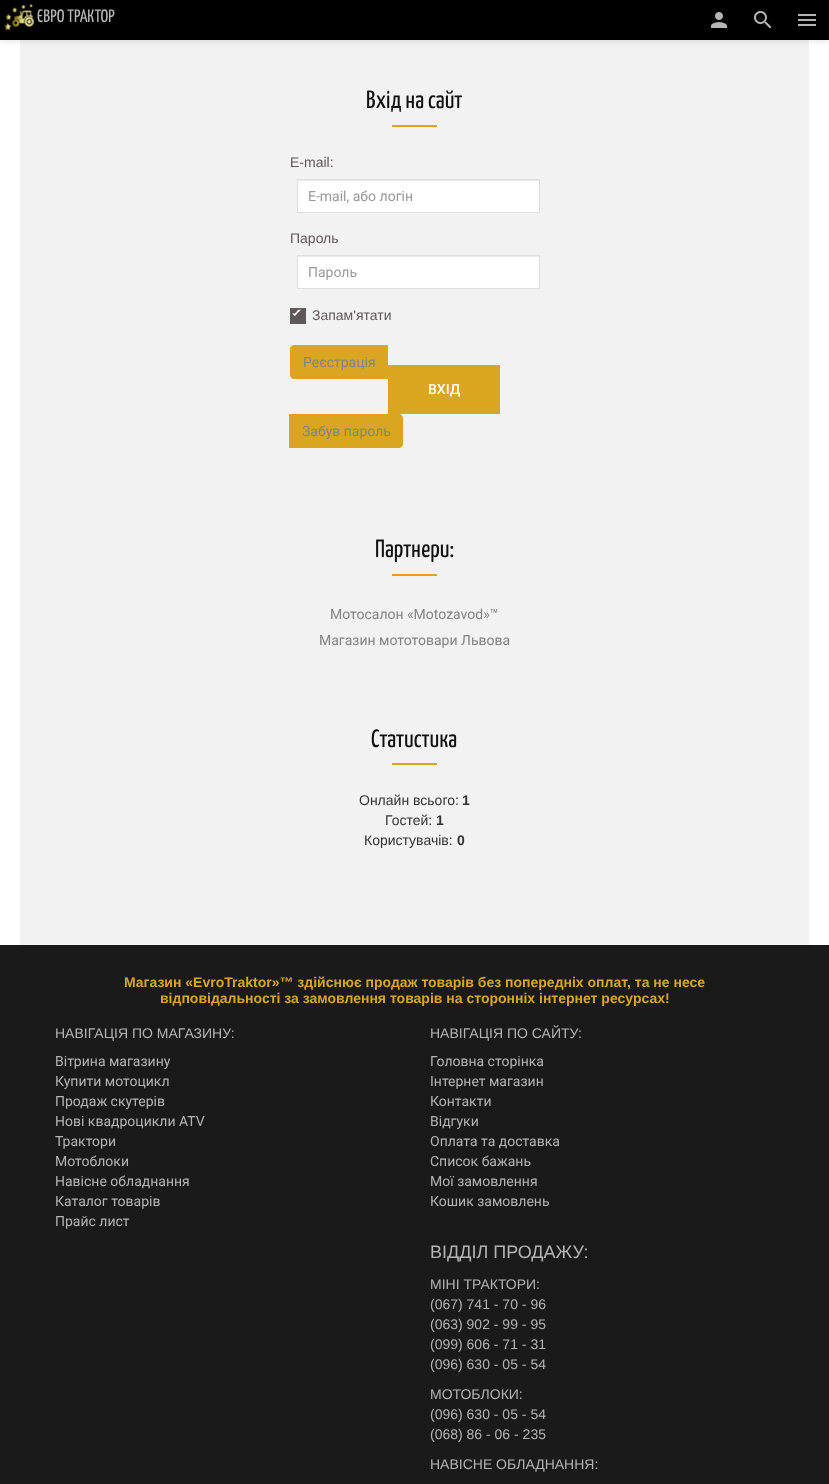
<svg xmlns="http://www.w3.org/2000/svg" width="829" height="1484" viewBox="0 0 829 1484">
  <style>
    .t1 { font: 18px Yanone Kaffeesatz; fill: #b4b4b4; }
    .t2 { font: 25px Yanone Kaffeesatz; fill: #121111; }
    .t3 { font: 14px Liberation Sans; fill: #5e5859; }
    .t4 { font: 14px Roboto; fill: #999; }
    .t5 { font: 14px Roboto; fill: #838383; }
    .t6 { font: 500 14px Roboto; fill: #fff; }
    .t7 { font: 14px Liberation Sans; fill: #333; }
    .t8 { font: bold 14px Liberation Sans; fill: #333; }
    .t9 { font: bold 14px Liberation Sans; fill: #daa520; }
    .t10 { font: 14px Liberation Sans; fill: #b4b4b4; }
    .t11 { font: 14px Roboto; fill: #b4b4b4; }
    .t12 { font: 18px Liberation Sans; fill: #b4b4b4; }
  </style>
  <rect width="100%" height="100%" fill="#fff"/>
  <rect x="20" y="40" width="789" height="905" fill="#f2f2f2"/>
  <rect x="0" y="2" width="829" height="40" fill="#3025001a" filter="blur(2.5px)"/>
  <rect x="0" y="0" width="829" height="40" fill="#000"/>
  <image x="4" y="4" width="30" height="26" href="images/1.png"/>
  <text x="37" y="22" class="t1">ЄВРО ТРАКТОР</text>
  <image x="711" y="12" width="16" height="16" href="images/2.png"/>
  <image x="754" y="11" width="18" height="18" href="images/3.png"/>
  <image x="798" y="14" width="18" height="12" href="images/4.png"/>
  <text x="366" y="108" class="t2">Вхід на сайт</text>
  <rect x="392" y="125" width="45" height="2" fill="#daa520"/>
  <text x="290" y="167" class="t3">E-mail:</text>
  <rect x="298" y="181" width="241" height="31" fill="#fff"/>
  <rect x="298" y="180" width="241" height="1" fill="#ececec"/>
  <rect x="297.5" y="179.5" width="242" height="33" fill="none" stroke="#ddd"/>
  <text x="308" y="201" class="t4">E-mail, або логін</text>
  <text x="290" y="243" class="t3">Пароль</text>
  <rect x="298" y="257" width="241" height="31" fill="#fff"/>
  <rect x="298" y="256" width="241" height="1" fill="#ececec"/>
  <rect x="297.5" y="255.5" width="242" height="33" fill="none" stroke="#ddd"/>
  <text x="308" y="277" class="t4">Пароль</text>
  <rect x="290" y="308" width="16" height="16" fill="#5e5859"/>
  <path d="M301 309.5L295 316V313.5L298 310ZM295 316L292 313.5H295Z" fill="#fff"/>
  <text x="312" y="320" class="t3">Запам'ятати</text>
  <path d="M294 345H388V379H294C292 379 290 377 290 375V349C290 347 292 345 294 345Z" fill="#daa520"/>
  <text x="303" y="367" class="t5">Реєстрація</text>
  <rect x="388" y="365" width="112" height="49" fill="#daa520"/>
  <text x="428" y="394" class="t6">ВХІД</text>
  <path d="M289 414H399C401 414 403 416 403 418V444C403 446 401 448 399 448H289Z" fill="#daa520"/>
  <text x="302" y="436" class="t5">Забув пароль</text>
  <text x="375" y="557" class="t2">Партнери:</text>
  <rect x="392" y="574" width="45" height="2" fill="#daa520"/>
  <text x="330" y="619" class="t5">Мотосалон «Motozavod»™</text>
  <text x="319" y="645" class="t5">Магазин мототовари Львова</text>
  <text x="371" y="747" class="t2">Статистика</text>
  <rect x="392" y="763" width="45" height="2" fill="#daa520"/>
  <text x="359" y="805" class="t7">Онлайн всього:</text>
  <text x="462" y="805" class="t8">1</text>
  <text x="385" y="825" class="t7">Гостей:</text>
  <text x="436" y="825" class="t8">1</text>
  <text x="364" y="845" class="t7">Користувачів:</text>
  <text x="457" y="845" class="t8">0</text>
  <rect x="0" y="945" width="829" height="539" fill="#1a1a1a"/>
  <text x="124" y="987" class="t9">Магазин «EvroTraktor»™ здійснює продаж товарів без попередніх оплат, та не несе</text>
  <text x="160" y="1003" class="t9">відповідальності за замовлення товарів на сторонніх інтернет ресурсах!</text>
  <text x="55" y="1038" class="t10">НАВІГАЦІЯ ПО МАГАЗИНУ:</text>
  <text x="55" y="1066" class="t11">Вітрина магазину</text>
  <text x="55" y="1086" class="t11">Купити мотоцикл</text>
  <text x="55" y="1106" class="t11">Продаж скутерів</text>
  <text x="55" y="1126" class="t11">Нові квадроцикли ATV</text>
  <text x="55" y="1146" class="t11">Трактори</text>
  <text x="55" y="1166" class="t11">Мотоблоки</text>
  <text x="55" y="1186" class="t11">Навісне обладнання</text>
  <text x="55" y="1206" class="t11">Каталог товарів</text>
  <text x="55" y="1226" class="t11">Прайс лист</text>
  <text x="430" y="1038" class="t10">НАВІГАЦІЯ ПО САЙТУ:</text>
  <text x="430" y="1066" class="t11">Головна сторінка</text>
  <text x="430" y="1086" class="t11">Інтернет магазин</text>
  <text x="430" y="1106" class="t11">Контакти</text>
  <text x="430" y="1126" class="t11">Відгуки</text>
  <text x="430" y="1146" class="t11">Оплата та доставка</text>
  <text x="430" y="1166" class="t11">Список бажань</text>
  <text x="430" y="1186" class="t11">Мої замовлення</text>
  <text x="430" y="1206" class="t11">Кошик замовлень</text>
  <text x="430" y="1258" class="t12">ВІДДІЛ ПРОДАЖУ:</text>
  <text x="430" y="1289" class="t10">МІНІ ТРАКТОРИ:</text>
  <text x="430" y="1309" class="t10">(067) 741 - 70 - 96</text>
  <text x="430" y="1329" class="t10">(063) 902 - 99 - 95</text>
  <text x="430" y="1349" class="t10">(099) 606 - 71 - 31</text>
  <text x="430" y="1369" class="t10">(096) 630 - 05 - 54</text>
  <text x="430" y="1399" class="t10">МОТОБЛОКИ:</text>
  <text x="430" y="1419" class="t10">(096) 630 - 05 - 54</text>
  <text x="430" y="1439" class="t10">(068) 86 - 06 - 235</text>
  <text x="430" y="1469" class="t10">НАВІСНЕ ОБЛАДНАННЯ:</text>
</svg>
